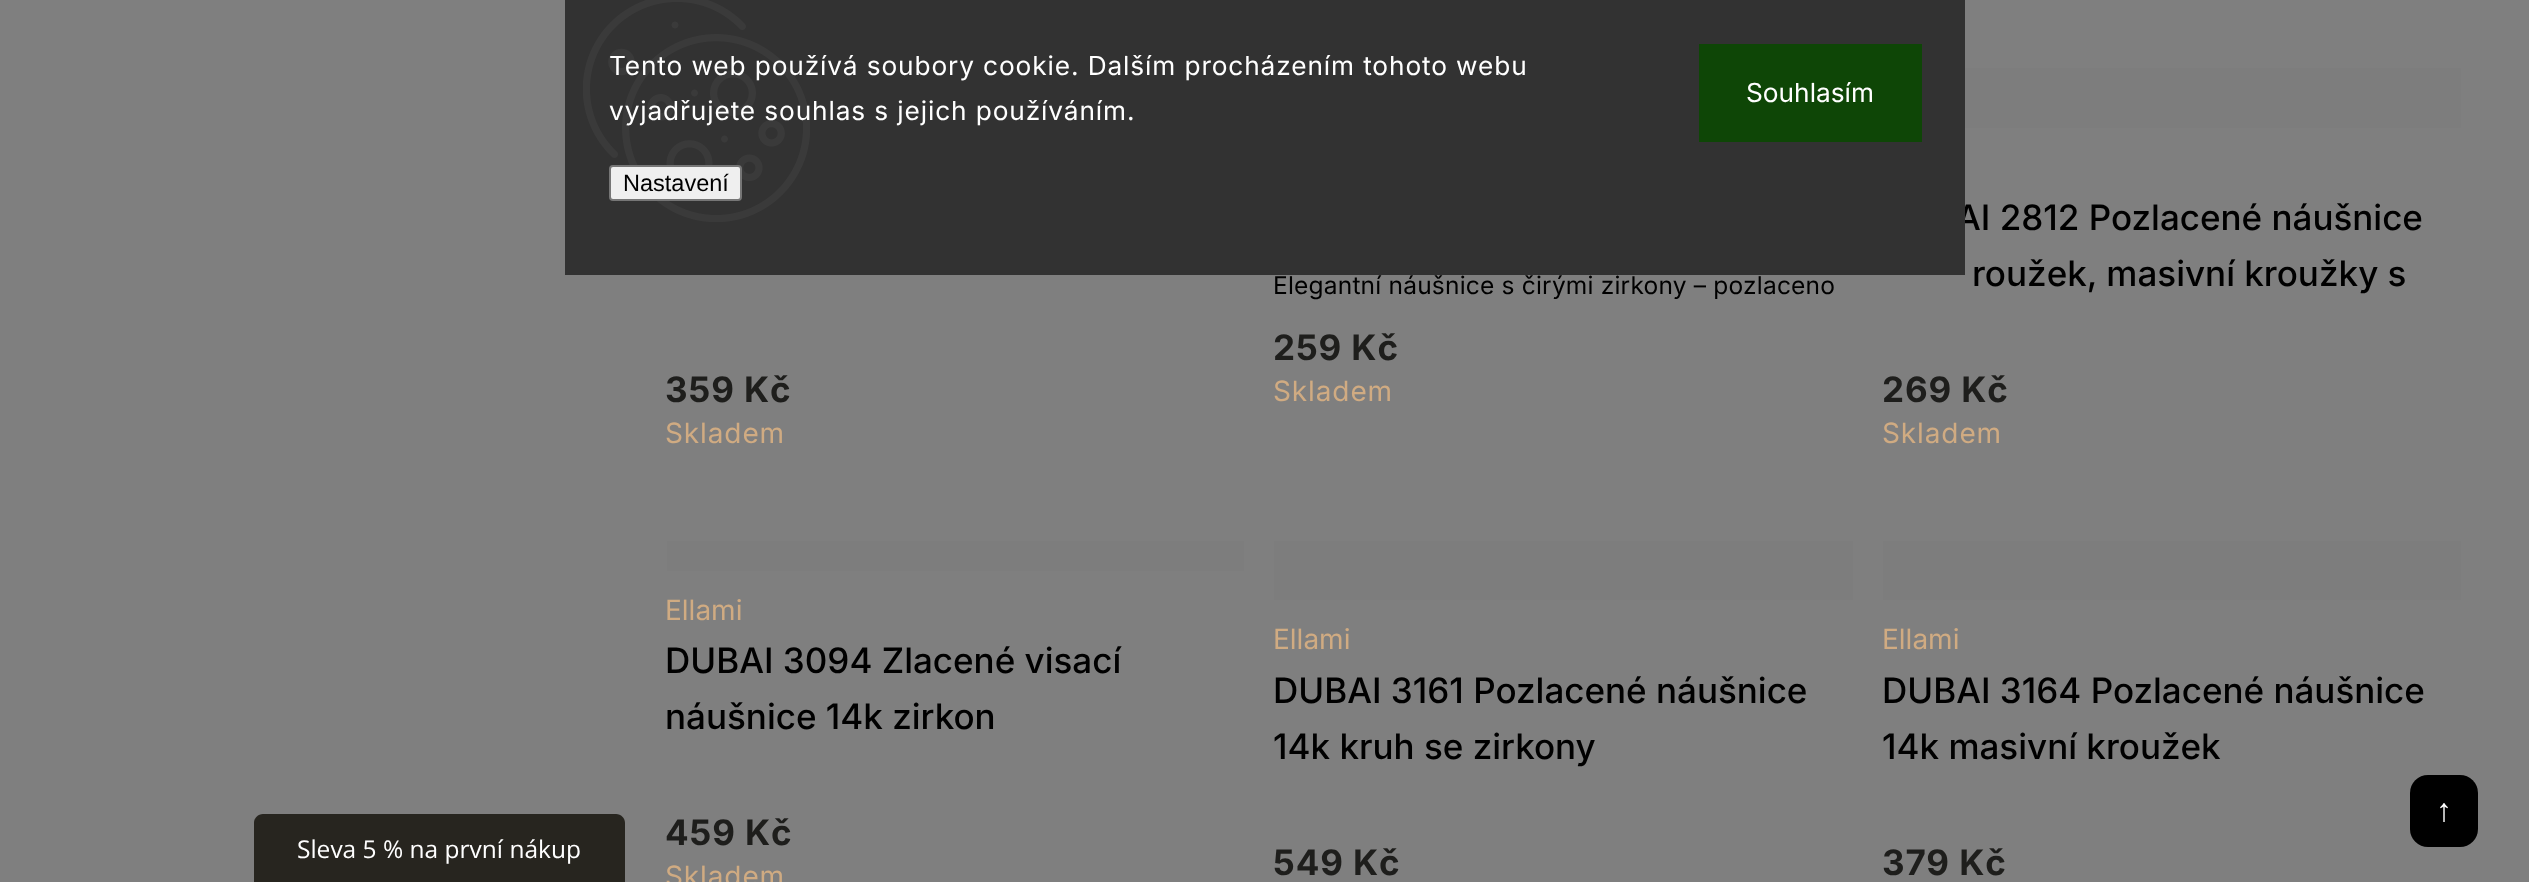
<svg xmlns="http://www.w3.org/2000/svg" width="2529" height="882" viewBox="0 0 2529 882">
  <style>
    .t1 { font: 500 35px Inter; fill: #000; }
    .t2 { font: 26.25px Inter; letter-spacing: 0.88px; fill: #fff; }
    .t3 { font: 23.5px Liberation Sans; fill: #000; }
    .t4 { font: 26.25px Inter; fill: #fff; }
    .t5 { font: 24.5px Inter; letter-spacing: 0.2px; fill: #000; }
    .t6 { font: bold 35px Inter; letter-spacing: 0.88px; fill: #1e1e1c; }
    .t7 { font: 28px Inter; letter-spacing: 0.88px; fill: #d0ab82; }
    .t8 { font: 28px Inter; fill: #d0ab82; }
    .t9 { font: 32px Liberation Sans; fill: #fff; }
    .t10 { font: 24.5px Open Sans; fill: #fff; }
  </style>
  <rect width="100%" height="100%" fill="#fff"/>
  <rect x="1965" y="68" width="496" height="60" fill="#fbfbfb"/>
  <rect x="667" y="541" width="577" height="30" fill="#fbfbfb"/>
  <rect x="1274" y="541" width="579" height="59" fill="#fbfbfb"/>
  <rect x="1883" y="541" width="578" height="59" fill="#fbfbfb"/>
  <rect x="2410" y="775" width="68" height="72" rx="18" fill="#000"/>
  <rect x="-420" y="-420" width="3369" height="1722" fill="#00000080" filter="blur(140px)"/>
  <text x="1956" y="230" class="t1">AI 2812 Pozlacené náušnice</text>
  <rect x="565" y="0" width="1400" height="275" fill="#323232"/>
  <image x="583" y="0" width="227" height="222" href="images/1.png"/>
  <text x="609" y="75" class="t2">Tento web používá soubory cookie. Dalším procházením tohoto webu</text>
  <text x="609" y="120" class="t2">vyjadřujete souhlas s jejich používáním.</text>
  <rect x="610" y="166" width="131" height="34" rx="3" fill="#efefef" stroke="#767676" stroke-width="2"/>
  <text x="623" y="191" class="t3">Nastavení</text>
  <rect x="1699" y="44" width="223" height="98" fill="#0e4606"/>
  <text x="1746" y="102" class="t4">Souhlasím</text>
  <text x="1273" y="294" class="t5">Elegantní náušnice s čirými zirkony – pozlaceno</text>
  <text x="1273" y="360" class="t6">259 Kč</text>
  <text x="1273" y="401" class="t7">Skladem</text>
  <text x="1972" y="286" class="t1">roužek, masivní kroužky s</text>
  <text x="1882" y="402" class="t6">269 Kč</text>
  <text x="1882" y="443" class="t7">Skladem</text>
  <text x="665" y="402" class="t6">359 Kč</text>
  <text x="665" y="443" class="t7">Skladem</text>
  <text x="665" y="620" class="t8">Ellami</text>
  <text x="665" y="673" class="t1">DUBAI 3094 Zlacené visací</text>
  <text x="665" y="729" class="t1">náušnice 14k zirkon</text>
  <text x="665" y="845" class="t6">459 Kč</text>
  <text x="665" y="886" class="t7">Skladem</text>
  <text x="1273" y="649" class="t8">Ellami</text>
  <text x="1273" y="703" class="t1">DUBAI 3161 Pozlacené náušnice</text>
  <text x="1273" y="759" class="t1">14k kruh se zirkony</text>
  <text x="1273" y="875" class="t6">549 Kč</text>
  <text x="1882" y="649" class="t8">Ellami</text>
  <text x="1882" y="703" class="t1">DUBAI 3164 Pozlacené náušnice</text>
  <text x="1882" y="759" class="t1">14k masivní kroužek</text>
  <text x="1882" y="875" class="t6">379 Kč</text>
  <text x="2436" y="821" class="t9">↑</text>
  <path d="M263 814H616C621 814 625 818 625 823V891H254V823C254 818 258 814 263 814Z" fill="#27251f"/>
  <text x="297" y="858" class="t10">Sleva 5 % na první nákup</text>
</svg>
